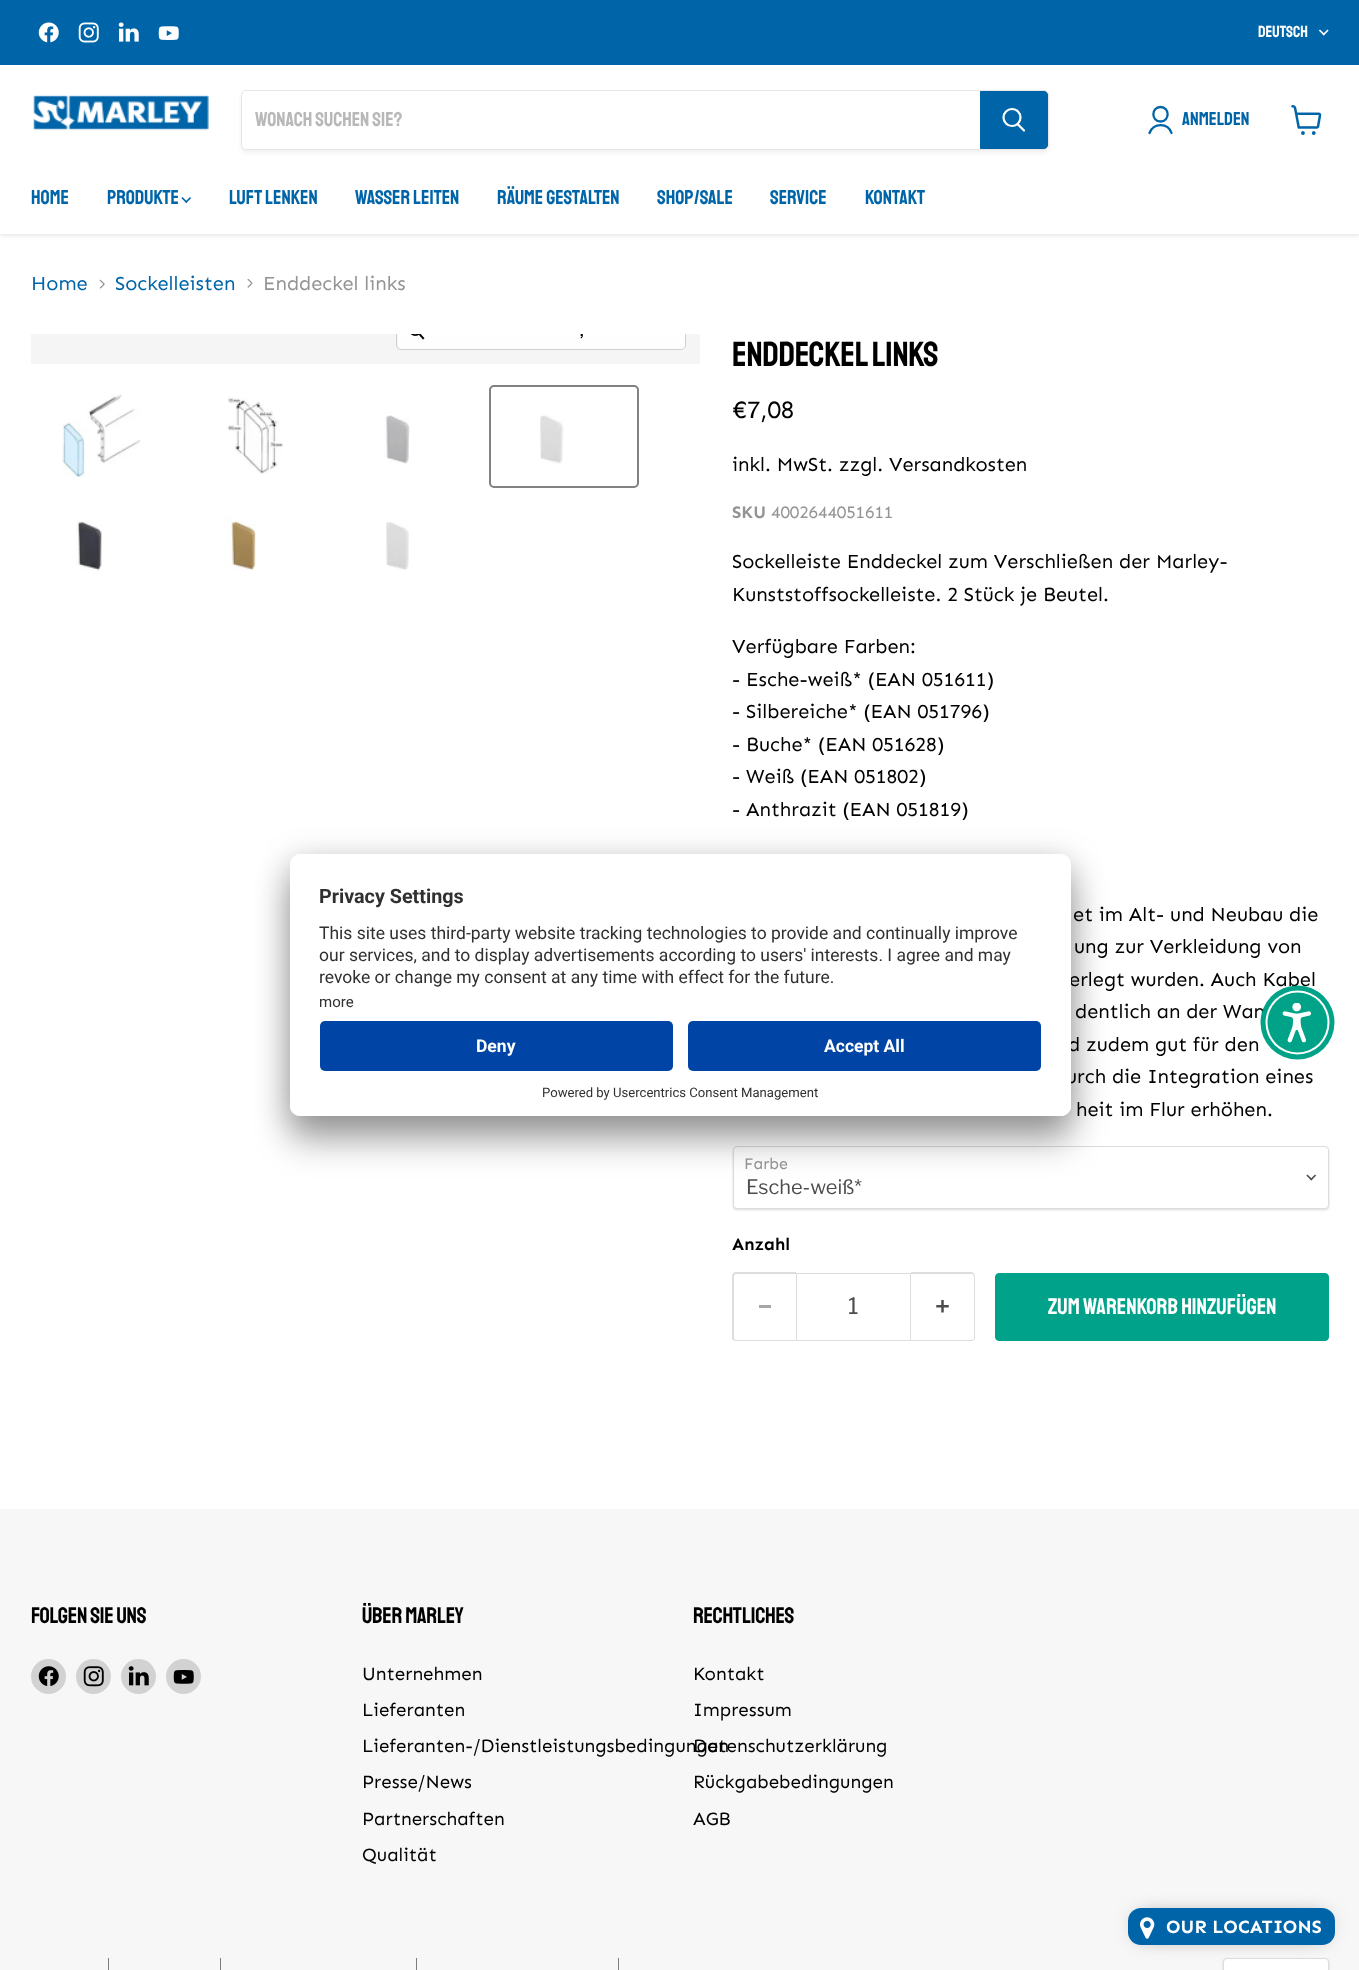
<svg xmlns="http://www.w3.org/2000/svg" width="1359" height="1970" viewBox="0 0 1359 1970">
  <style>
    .t1 { font: 16px Staatliches; fill: #fff; }
    .t2 { font: 20px Staatliches; fill: #b8b8b8; }
    .t3 { font: 18.75px Staatliches; fill: #0065a8; }
    .t4 { font: 20px Staatliches; fill: #0065a8; }
    .t5 { font: 20px Sen; fill: #0065a8; }
    .t6 { font: 20px Sen; fill: #949494; }
    .t7 { font: 17.5px Staatliches; fill: #000; }
    .t8 { font: 35px Staatliches; letter-spacing: -0.3px; fill: #000; }
    .t9 { font: 25px Sen; fill: #000; }
    .t10 { font: 20px Sen; fill: #000; }
    .t11 { font: bold 17.5px Sen; fill: #949494; }
    .t12 { font: 17.5px Sen; fill: #949494; }
    .t13 { font: 16px Sen; fill: #949494; }
    .t14 { font: 20px Libre Franklin; fill: #4d4d4d; }
    .t15 { font: bold 17.5px Sen; fill: #000; }
    .t16 { font: 22.5px Libre Franklin; fill: #4d4d4d; }
    .t17 { font: 22.5px Staatliches; fill: #fff; }
    .t18 { font: bold 19.75px Roboto; fill: #303030; }
    .t19 { font: 17.5px Roboto; fill: #303030; }
    .t20 { font: 15px Roboto; fill: #303030; }
    .t21 { font: bold 17.5px Roboto; fill: #fff; }
    .t22 { font: 13.1px Roboto; fill: #303030; }
    .t23 { font: 22.5px Staatliches; letter-spacing: -0.25px; fill: #000; }
    .t24 { font: 18.75px Sen; fill: #000; }
    .t25 { font: bold 18.75px Sen; letter-spacing: 0.1px; fill: #fff; }
  </style>
  <defs>
    <clipPath id="clip1"><path d="M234 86H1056V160H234ZM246 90H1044C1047 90 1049 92 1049 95V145C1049 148 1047 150 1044 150H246C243 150 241 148 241 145V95C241 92 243 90 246 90Z" clip-rule="evenodd"/></clipPath>
    <clipPath id="clip2"><rect x="31" y="334" width="669" height="30"/></clipPath>
  </defs>
  <rect width="100%" height="100%" fill="#fff"/>
  <rect x="0" y="68" width="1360" height="167" fill="#80808040" filter="blur(2.5px)"/>
  <rect x="0" y="0" width="1359" height="65" fill="#0065a8"/>
  <image x="38" y="22" width="21" height="21" href="images/1.png"/>
  <image x="78" y="22" width="21" height="21" href="images/2.png"/>
  <image x="118" y="22" width="21" height="20" href="images/3.png"/>
  <image x="158" y="26" width="21" height="14" href="images/4.png"/>
  <text x="1258" y="37" class="t1">Deutsch</text>
  <image x="1319" y="29" width="10" height="7" href="images/5.png"/>
  <rect x="0" y="65" width="1359" height="169" fill="#fff"/>
  <image x="33" y="95" width="176" height="36" href="images/6.png"/>
  <g clip-path="url(#clip1)">
    <rect x="241" y="93" width="808" height="60" rx="5" fill="#8080801c" filter="blur(2px)"/>
  </g>
  <rect x="241.5" y="90.5" width="807" height="59" rx="4.5" fill="none" stroke="#80808033"/>
  <text x="255" y="126" class="t2">Wonach suchen Sie?</text>
  <path d="M980.5 91.5H1044C1046 91.5 1047.5 93 1047.5 95V145C1047.5 147 1046 148.5 1044 148.5H980.5Z" fill="#0065a8" stroke="#0065a8"/>
  <path d="M1024 130.5L1018 124.5" fill="none" stroke="#fff" stroke-width="2.2" stroke-linecap="round"/>
  <circle cx="1012" cy="117.5" r="8.5" fill="none" stroke="#fff" stroke-width="2.2"/>
  <path d="M1160.5 121.5C1170 121.5 1170 107 1160.5 107C1151 107 1151 121.5 1160.5 121.5ZM1171.5 133C1168 122.5 1153.5 122.5 1149.5 133" fill="none" stroke="#0065a8" stroke-width="2.3" stroke-linecap="round" stroke-linejoin="round"/>
  <text x="1182" y="125" class="t3">Anmelden</text>
  <image x="1291" y="105" width="31" height="30" href="images/7.png"/>
  <text x="31" y="204" class="t4">Home</text>
  <text x="107" y="204" class="t4">Produkte</text>
  <image x="181" y="197" width="10" height="6" href="images/8.png"/>
  <text x="229" y="204" class="t4">Luft lenken</text>
  <text x="355" y="204" class="t4">Wasser leiten</text>
  <text x="497" y="204" class="t4">Räume gestalten</text>
  <text x="657" y="204" class="t4">Shop/Sale</text>
  <text x="770" y="204" class="t4">Service</text>
  <text x="865" y="204" class="t4">Kontakt</text>
  <text x="31" y="290" class="t5">Home</text>
  <image x="99" y="279" width="6" height="10" href="images/9.png"/>
  <text x="115" y="290" class="t5">Sockelleisten</text>
  <image x="247" y="279" width="6" height="9" href="images/10.png"/>
  <text x="263" y="290" class="t6">Enddeckel links</text>
  <rect x="31" y="334" width="669" height="30" fill="#f5f5f5"/>
  <g clip-path="url(#clip2)">
    <rect x="396.5" y="313.5" width="289" height="36" rx="4.5" fill="none" stroke="#d0d0d0"/>
  </g>
  <path d="M398 334H685V345C685 347 683 349 681 349H402C400 349 398 347 398 345Z" fill="#ffffffe6"/>
  <image x="410" y="334" width="15" height="6" href="images/11.png"/>
  <g clip-path="url(#clip2)">
    <text x="580" y="336" class="t7">,</text>
  </g>
  <image x="62" y="394" width="79" height="85" href="images/12.png"/>
  <image x="227" y="397" width="56" height="77" href="images/13.png"/>
  <image x="384" y="415" width="26" height="49" href="images/14.png"/>
  <rect x="490" y="386" width="148" height="101" rx="4" fill="none" stroke="#818181" stroke-width="2"/>
  <image x="540" y="415" width="24" height="49" href="images/15.png"/>
  <image x="76" y="520" width="26" height="51" href="images/16.png"/>
  <image x="225" y="515" width="31" height="56" href="images/17.png"/>
  <image x="386" y="522" width="23" height="48" href="images/18.png"/>
  <text x="732" y="366" class="t8">Enddeckel links</text>
  <text x="732" y="418" class="t9">€7,08</text>
  <text x="732" y="471" class="t10">inkl. MwSt. zzgl. Versandkosten</text>
  <text x="732" y="518" class="t11">SKU</text>
  <text x="771" y="518" class="t12">4002644051611</text>
  <text x="732" y="568" class="t10">Sockelleiste Enddeckel zum Verschließen der Marley-</text>
  <text x="732" y="601" class="t10">Kunststoffsockelleiste. 2 Stück je Beutel.</text>
  <text x="732" y="653" class="t10">Verfügbare Farben:</text>
  <text x="732" y="686" class="t10">- Esche-weiß* (EAN 051611)</text>
  <text x="732" y="718" class="t10">- Silbereiche* (EAN 051796)</text>
  <text x="732" y="751" class="t10">- Buche* (EAN 051628)</text>
  <text x="732" y="783" class="t10">- Weiß (EAN 051802)</text>
  <text x="732" y="816" class="t10">- Anthrazit (EAN 051819)</text>
  <text x="1073" y="921" class="t10">et im Alt- und Neubau die</text>
  <text x="1074" y="953" class="t10">ung zur Verkleidung von</text>
  <text x="1069" y="986" class="t10">erlegt wurden. Auch Kabel</text>
  <text x="1075" y="1018" class="t10">dentlich an der Wan</text>
  <text x="1068" y="1051" class="t10">d zudem gut für den</text>
  <text x="1066" y="1083" class="t10">urch die Integration eines</text>
  <text x="1076" y="1116" class="t10">heit im Flur erhöhen.</text>
  <rect x="733" y="1148" width="596" height="62" rx="4" fill="#00000026" filter="blur(1px)"/>
  <rect x="733.5" y="1146.5" width="595" height="62" rx="3.5" fill="#fff" stroke="#ddd"/>
  <text x="744" y="1169" class="t13">Farbe</text>
  <image x="1306" y="1174" width="10" height="7" href="images/19.png"/>
  <text x="746" y="1194" class="t14">Esche-weiß*</text>
  <text x="732" y="1250" class="t15">Anzahl</text>
  <path d="M736 1272H796V1341H736C734 1341 732 1340 732 1338V1276C732 1274 734 1272 736 1272ZM736 1274H796V1340H736C735 1340 734 1339 734 1338V1276C734 1275 735 1274 736 1274Z" fill="#ddd" fill-rule="evenodd"/>
  <rect x="759" y="1305" width="12" height="3" fill="#a6a6a6"/>
  <rect x="796.5" y="1273.5" width="114" height="67" fill="none" stroke="#ddd"/>
  <text x="848" y="1314" class="t16">1</text>
  <path d="M911 1272H971C973 1272 975 1274 975 1276V1338C975 1340 973 1341 971 1341H911ZM911 1274H971C973 1274 974 1275 974 1276V1338C974 1339 973 1340 971 1340H911Z" fill="#ddd" fill-rule="evenodd"/>
  <image x="936" y="1300" width="13" height="13" href="images/20.png"/>
  <rect x="995.5" y="1273.5" width="333" height="67" rx="3.5" fill="#00a389" stroke="#00a389"/>
  <text x="1048" y="1314" class="t17">Zum Warenkorb hinzufügen</text>
  <rect x="290" y="879" width="781" height="262" rx="10" fill="#0000004d" filter="blur(17.5px)"/>
  <rect x="290" y="860" width="781" height="263" rx="10" fill="#00000038" filter="blur(16px)"/>
  <rect x="290" y="854" width="781" height="262" rx="10" fill="#fff"/>
  <text x="319" y="903" class="t18">Privacy Settings</text>
  <text x="319" y="939" class="t19">This site uses third-party website tracking technologies to provide and continually improve</text>
  <text x="319" y="961" class="t19">our services, and to display advertisements according to users' interests. I agree and may</text>
  <text x="319" y="983" class="t19">revoke or change my consent at any time with effect for the future.</text>
  <text x="319" y="1007" class="t20">more</text>
  <path d="M290 1011H1071V1106C1071 1111.5 1066.5 1116 1061 1116H300C294.5 1116 290 1111.5 290 1106Z" fill="#fff"/>
  <rect x="320" y="1021" width="353" height="50" rx="5" fill="#0045a5"/>
  <text x="476" y="1052" class="t21">Deny</text>
  <rect x="688" y="1021" width="353" height="50" rx="5" fill="#0045a5"/>
  <text x="824" y="1052" class="t21">Accept All</text>
  <text x="542" y="1097" class="t22">Powered by Usercentrics Consent Management</text>
  <circle cx="1297.5" cy="1022.5" r="37" fill="#00a388"/>
  <circle cx="1297.5" cy="1022.5" r="32" fill="#fff"/>
  <circle cx="1297.5" cy="1022.5" r="30" fill="#00a388"/>
  <image x="1282" y="1003" width="29" height="40" href="images/21.png"/>
  <rect x="0" y="1509" width="1359" height="461" fill="#f7f7f7"/>
  <text x="31" y="1623" class="t23">Folgen Sie uns</text>
  <circle cx="48.5" cy="1676.5" r="17.5" fill="#d2d2d2"/>
  <image x="38" y="1666" width="21" height="20" href="images/22.png"/>
  <circle cx="93.5" cy="1676.5" r="17.5" fill="#d2d2d2"/>
  <image x="83" y="1666" width="21" height="21" href="images/23.png"/>
  <circle cx="138.5" cy="1676.5" r="17.5" fill="#d2d2d2"/>
  <image x="128" y="1666" width="21" height="20" href="images/24.png"/>
  <circle cx="183.5" cy="1676.5" r="17.5" fill="#d2d2d2"/>
  <image x="173" y="1670" width="21" height="14" href="images/25.png"/>
  <text x="362" y="1623" class="t23">Über Marley</text>
  <text x="362" y="1680" class="t24">Unternehmen</text>
  <text x="362" y="1716" class="t24">Lieferanten</text>
  <text x="362" y="1752" class="t24">Lieferanten-/Dienstleistungsbedingungen</text>
  <text x="362" y="1788" class="t24">Presse/News</text>
  <text x="362" y="1825" class="t24">Partnerschaften</text>
  <text x="362" y="1861" class="t24">Qualität</text>
  <text x="693" y="1623" class="t23">Rechtliches</text>
  <text x="693" y="1680" class="t24">Kontakt</text>
  <text x="693" y="1716" class="t24">Impressum</text>
  <text x="693" y="1752" class="t24">Datenschutzerklärung</text>
  <text x="693" y="1788" class="t24">Rückgabebedingungen</text>
  <text x="693" y="1825" class="t24">AGB</text>
  <rect x="108" y="1958" width="1" height="12" fill="#7c7c7c"/>
  <rect x="220" y="1958" width="1" height="12" fill="#7c7c7c"/>
  <rect x="416" y="1958" width="1" height="12" fill="#7c7c7c"/>
  <rect x="618" y="1958" width="1" height="12" fill="#7c7c7c"/>
  <rect x="1223" y="1959" width="106" height="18" rx="4" fill="#00000026" filter="blur(1px)"/>
  <rect x="1223.5" y="1958.5" width="105" height="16" rx="3.5" fill="#fff" stroke="#ddd"/>
  <rect x="1139" y="1919" width="185" height="15" rx="1" fill="#5a5a5a" filter="blur(11px)"/>
  <rect x="1128" y="1908" width="207" height="37" rx="13" fill="#0065a8"/>
  <image x="1140" y="1917" width="15" height="22" href="images/26.png"/>
  <text x="1166" y="1933" class="t25">OUR LOCATIONS</text>
</svg>
